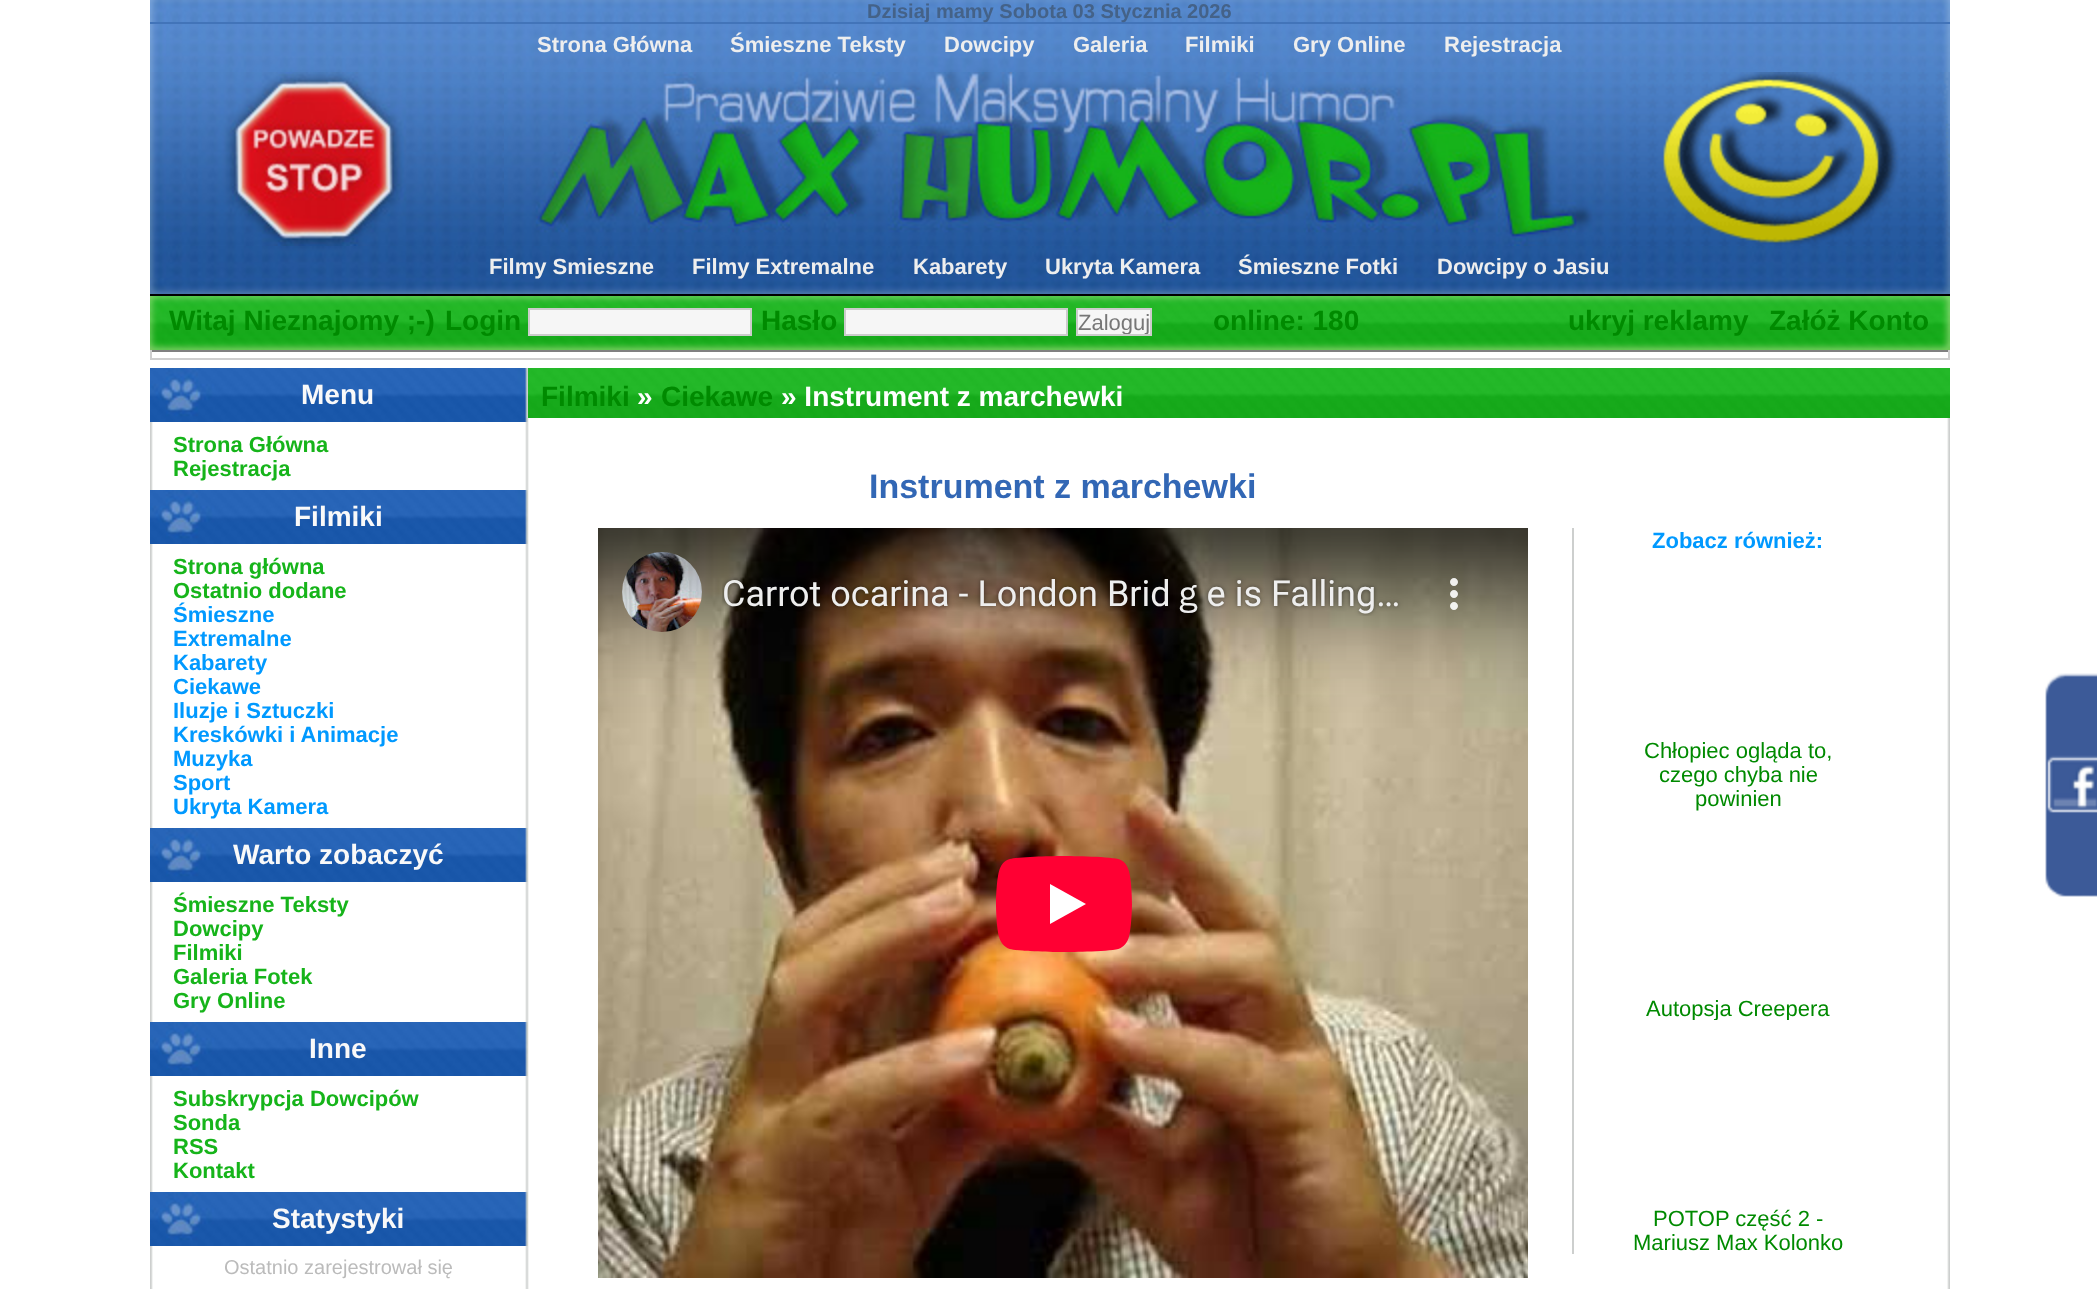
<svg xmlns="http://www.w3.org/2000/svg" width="2097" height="1289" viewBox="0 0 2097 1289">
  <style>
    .t1 { font: bold 20px Liberation Sans; fill: #446288; }
    .t2 { font: bold 22px Liberation Sans; fill: #eee; }
    .t3 { font: bold 28px Liberation Sans; fill: #008a00; }
    .t4 { font: 22px Liberation Sans; fill: #777; }
    .t5 { font: bold 28px Liberation Sans; fill: #f9f9f9; }
    .t6 { font: bold 22px Liberation Sans; fill: #16b41a; }
    .t7 { font: bold 22px Liberation Sans; fill: #09f; }
    .t8 { font: 20px Liberation Sans; fill: #bbb; }
    .t9 { font: bold 28px Liberation Sans; fill: #fff; }
    .t10 { font: bold 34px Liberation Sans; fill: #3267b5; }
    .t11 { font: 22px Liberation Sans; fill: #008a00; }
  </style>
  <defs>
    <clipPath id="clip1"><rect x="1078" y="310" width="72" height="24"/></clipPath>
    <clipPath id="clip2"><rect x="1614" y="996" width="250" height="24"/></clipPath>
  </defs>
  <rect width="100%" height="100%" fill="#fff"/>
  <image x="150" y="0" width="1800" height="22" href="images/1.png"/>
  <rect x="150" y="22" width="1800" height="2" fill="#4274b9"/>
  <text x="867" y="18" class="t1">Dzisiaj mamy Sobota 03 Stycznia 2026</text>
  <image x="150" y="24" width="1800" height="48" href="images/2.png"/>
  <text x="537" y="52" class="t2">Strona Główna</text>
  <text x="730" y="52" class="t2">Śmieszne Teksty</text>
  <text x="944" y="52" class="t2">Dowcipy</text>
  <text x="1073" y="52" class="t2">Galeria</text>
  <text x="1185" y="52" class="t2">Filmiki</text>
  <text x="1293" y="52" class="t2">Gry Online</text>
  <text x="1444" y="52" class="t2">Rejestracja</text>
  <image x="150" y="72" width="354" height="174" href="images/3.png"/>
  <image x="504" y="72" width="1122" height="174" href="images/4.png"/>
  <image x="1626" y="72" width="324" height="174" href="images/5.png"/>
  <image x="150" y="246" width="1800" height="48" href="images/6.png"/>
  <rect x="150" y="294" width="1800" height="2" fill="#000"/>
  <text x="489" y="274" class="t2">Filmy Smieszne</text>
  <text x="692" y="274" class="t2">Filmy Extremalne</text>
  <text x="913" y="274" class="t2">Kabarety</text>
  <text x="1045" y="274" class="t2">Ukryta Kamera</text>
  <text x="1238" y="274" class="t2">Śmieszne Fotki</text>
  <text x="1437" y="274" class="t2">Dowcipy o Jasiu</text>
  <image x="150" y="296" width="1800" height="54" href="images/7.png"/>
  <text x="169" y="330" class="t3">Witaj Nieznajomy ;-)</text>
  <text x="445" y="330" class="t3">Login</text>
  <rect x="529" y="309" width="222" height="26" fill="#f6f6f6" stroke="#ccc" stroke-width="2"/>
  <text x="761" y="330" class="t3">Hasło</text>
  <rect x="845" y="309" width="222" height="26" fill="#f6f6f6" stroke="#ccc" stroke-width="2"/>
  <rect x="1077" y="309" width="74" height="26" fill="#f6f6f6" stroke="#ccc" stroke-width="2"/>
  <g clip-path="url(#clip1)">
    <text x="1078" y="330" class="t4">Zaloguj</text>
  </g>
  <text x="1213" y="330" class="t3">online: 180</text>
  <text x="1568" y="330" class="t3">ukryj reklamy</text>
  <text x="1769" y="330" class="t3">Załóż Konto</text>
  <rect x="150" y="350" width="1800" height="2" fill="#808080"/>
  <rect x="1948" y="350" width="2" height="10" fill="#cecece"/>
  <rect x="150" y="358" width="1800" height="2" fill="#cecece"/>
  <rect x="150" y="350" width="2" height="10" fill="#cecece"/>
  <image x="150" y="418" width="1800" height="871" href="images/8.png"/>
  <image x="150" y="368" width="378" height="54" href="images/9.png"/>
  <text x="301" y="404" class="t5">Menu</text>
  <text x="173" y="452" class="t6">Strona Główna</text>
  <text x="173" y="476" class="t6">Rejestracja</text>
  <image x="150" y="490" width="378" height="54" href="images/9.png"/>
  <text x="294" y="526" class="t5">Filmiki</text>
  <text x="173" y="574" class="t6">Strona główna</text>
  <text x="173" y="598" class="t6">Ostatnio dodane</text>
  <text x="173" y="622" class="t7">Śmieszne</text>
  <text x="173" y="646" class="t7">Extremalne</text>
  <text x="173" y="670" class="t7">Kabarety</text>
  <text x="173" y="694" class="t7">Ciekawe</text>
  <text x="173" y="718" class="t7">Iluzje i Sztuczki</text>
  <text x="173" y="742" class="t7">Kreskówki i Animacje</text>
  <text x="173" y="766" class="t7">Muzyka</text>
  <text x="173" y="790" class="t7">Sport</text>
  <text x="173" y="814" class="t7">Ukryta Kamera</text>
  <image x="150" y="828" width="378" height="54" href="images/9.png"/>
  <text x="233" y="864" class="t5">Warto zobaczyć</text>
  <text x="173" y="912" class="t6">Śmieszne Teksty</text>
  <text x="173" y="936" class="t6">Dowcipy</text>
  <text x="173" y="960" class="t6">Filmiki</text>
  <text x="173" y="984" class="t6">Galeria Fotek</text>
  <text x="173" y="1008" class="t6">Gry Online</text>
  <image x="150" y="1022" width="378" height="54" href="images/9.png"/>
  <text x="309" y="1058" class="t5">Inne</text>
  <text x="173" y="1106" class="t6">Subskrypcja Dowcipów</text>
  <text x="173" y="1130" class="t6">Sonda</text>
  <text x="173" y="1154" class="t6">RSS</text>
  <text x="173" y="1178" class="t6">Kontakt</text>
  <image x="150" y="1192" width="378" height="54" href="images/9.png"/>
  <text x="272" y="1228" class="t5">Statystyki</text>
  <text x="224" y="1274" class="t8">Ostatnio zarejestrował się</text>
  <image x="528" y="368" width="1422" height="50" href="images/10.png"/>
  <text x="541" y="406" class="t3">Filmiki</text>
  <text x="637" y="406" class="t9">»</text>
  <text x="661" y="406" class="t3">Ciekawe</text>
  <text x="781" y="406" class="t9">» Instrument z marchewki</text>
  <text x="869" y="498" class="t10">Instrument z marchewki</text>
  <image x="598" y="528" width="930" height="750" href="images/11.png"/>
  <rect x="1572" y="528" width="2" height="726" fill="#cdcfce"/>
  <text x="1652" y="548" class="t7">Zobacz również:</text>
  <text x="1644" y="758" class="t11">Chłopiec ogląda to,</text>
  <text x="1659" y="782" class="t11">czego chyba nie</text>
  <text x="1695" y="806" class="t11">powinien</text>
  <g clip-path="url(#clip2)">
    <text x="1646" y="1016" class="t11">Autopsja Creepera</text>
  </g>
  <text x="1653" y="1226" class="t11">POTOP część 2 -</text>
  <text x="1633" y="1250" class="t11">Mariusz Max Kolonko</text>
  <image x="2045" y="673" width="52" height="224" href="images/12.png"/>
</svg>
